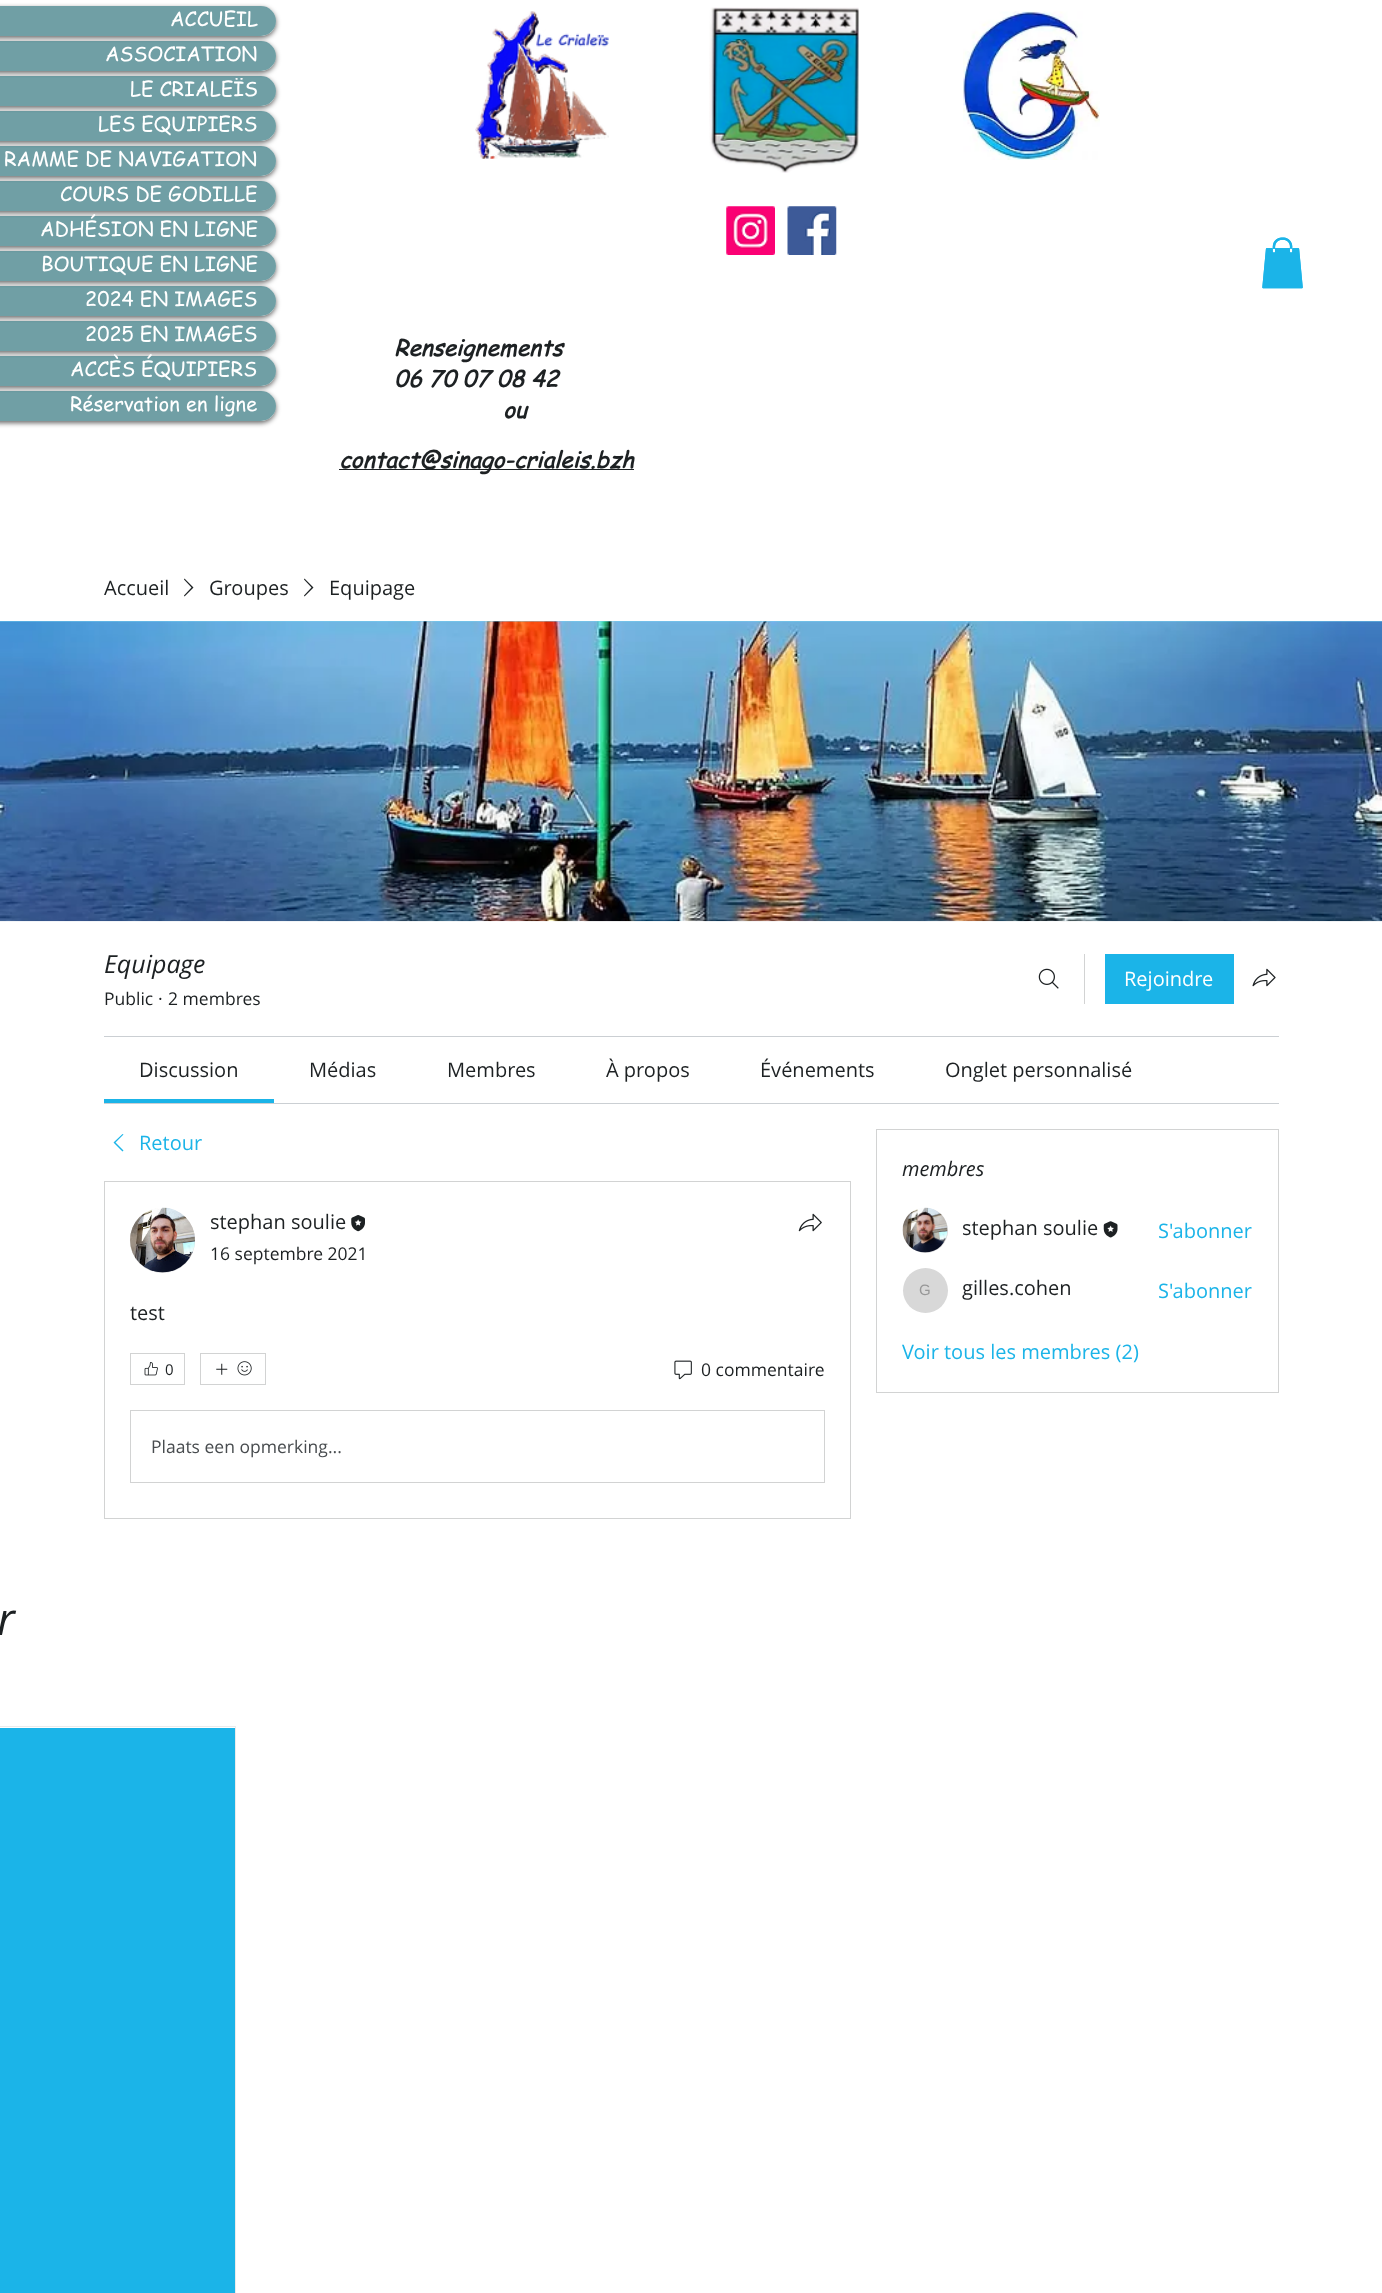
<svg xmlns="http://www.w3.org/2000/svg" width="1382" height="2293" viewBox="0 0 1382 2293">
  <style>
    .t1 { font: 20px 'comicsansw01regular'; fill: #fff; }
    .t2 { font: italic bold 22.5px 'comicsansw01regular'; fill: #1d2123; }
    .t3 { font: 20px Open Sans; fill: #1d2123; }
    .t4 { font: italic 25px Open Sans; fill: #1d2123; }
    .t5 { font: 17.5px Open Sans; fill: #1d2123; }
    .t6 { font: 20px Open Sans; fill: #fff; }
    .t7 { font: 20px Open Sans; fill: #1bb4e8; }
    .t8 { font: 15px Open Sans; fill: #1d2123; }
    .t9 { font: 17.5px Open Sans; fill: #484c4f; }
    .t10 { font: italic 20px Open Sans; fill: #1d2123; }
    .t11 { font: 15px Liberation Sans; fill: #979797; }
    .t12 { font: italic 45px Open Sans; fill: #1d2123; }
  </style>
  <defs>
    <clipPath id="clip1"><path d="M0 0H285V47H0ZM-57 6H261C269.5 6 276 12.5 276 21C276 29.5 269.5 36 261 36H-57C-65.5 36-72 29.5-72 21C-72 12.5-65.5 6-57 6Z" clip-rule="evenodd"/></clipPath>
    <clipPath id="clip2"><path d="M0 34H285V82H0ZM-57 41H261C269.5 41 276 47.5 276 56C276 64.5 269.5 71 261 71H-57C-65.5 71-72 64.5-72 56C-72 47.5-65.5 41-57 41Z" clip-rule="evenodd"/></clipPath>
    <clipPath id="clip3"><path d="M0 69H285V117H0ZM-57 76H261C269.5 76 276 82.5 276 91C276 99.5 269.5 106 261 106H-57C-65.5 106-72 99.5-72 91C-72 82.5-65.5 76-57 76Z" clip-rule="evenodd"/></clipPath>
    <clipPath id="clip4"><path d="M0 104H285V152H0ZM-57 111H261C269.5 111 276 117.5 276 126C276 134.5 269.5 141 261 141H-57C-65.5 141-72 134.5-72 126C-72 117.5-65.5 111-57 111Z" clip-rule="evenodd"/></clipPath>
    <clipPath id="clip5"><path d="M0 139H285V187H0ZM-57 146H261C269.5 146 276 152.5 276 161C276 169.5 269.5 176 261 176H-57C-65.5 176-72 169.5-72 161C-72 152.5-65.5 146-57 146Z" clip-rule="evenodd"/></clipPath>
    <clipPath id="clip6"><path d="M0 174H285V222H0ZM-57 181H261C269.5 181 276 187.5 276 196C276 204.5 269.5 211 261 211H-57C-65.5 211-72 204.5-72 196C-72 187.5-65.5 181-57 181Z" clip-rule="evenodd"/></clipPath>
    <clipPath id="clip7"><path d="M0 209H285V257H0ZM-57 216H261C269.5 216 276 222.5 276 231C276 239.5 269.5 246 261 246H-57C-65.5 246-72 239.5-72 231C-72 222.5-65.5 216-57 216Z" clip-rule="evenodd"/></clipPath>
    <clipPath id="clip8"><path d="M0 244H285V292H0ZM-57 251H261C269.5 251 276 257.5 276 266C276 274.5 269.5 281 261 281H-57C-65.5 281-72 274.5-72 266C-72 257.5-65.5 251-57 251Z" clip-rule="evenodd"/></clipPath>
    <clipPath id="clip9"><path d="M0 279H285V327H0ZM-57 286H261C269.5 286 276 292.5 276 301C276 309.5 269.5 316 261 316H-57C-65.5 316-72 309.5-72 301C-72 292.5-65.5 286-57 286Z" clip-rule="evenodd"/></clipPath>
    <clipPath id="clip10"><path d="M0 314H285V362H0ZM-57 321H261C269.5 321 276 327.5 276 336C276 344.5 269.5 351 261 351H-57C-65.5 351-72 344.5-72 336C-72 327.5-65.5 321-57 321Z" clip-rule="evenodd"/></clipPath>
    <clipPath id="clip11"><path d="M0 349H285V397H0ZM-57 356H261C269.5 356 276 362.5 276 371C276 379.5 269.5 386 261 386H-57C-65.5 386-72 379.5-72 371C-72 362.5-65.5 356-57 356Z" clip-rule="evenodd"/></clipPath>
    <clipPath id="clip12"><path d="M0 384H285V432H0ZM-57 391H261C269.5 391 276 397.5 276 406C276 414.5 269.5 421 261 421H-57C-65.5 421-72 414.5-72 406C-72 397.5-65.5 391-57 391Z" clip-rule="evenodd"/></clipPath>
  </defs>
  <rect width="100%" height="100%" fill="#fff"/>
  <g clip-path="url(#clip1)">
    <rect x="-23" y="8" width="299" height="30" rx="15" fill="#00000099" filter="blur(2.5px)"/>
  </g>
  <rect x="-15" y="6" width="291" height="30" rx="15" fill="#00535f8f"/>
  <text x="170" y="26" class="t1">ACCUEIL</text>
  <g clip-path="url(#clip2)">
    <rect x="-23" y="43" width="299" height="30" rx="15" fill="#00000099" filter="blur(2.5px)"/>
  </g>
  <rect x="-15" y="41" width="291" height="30" rx="15" fill="#00535f8f"/>
  <text x="105" y="61" class="t1">ASSOCIATION</text>
  <g clip-path="url(#clip3)">
    <rect x="-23" y="78" width="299" height="30" rx="15" fill="#00000099" filter="blur(2.5px)"/>
  </g>
  <rect x="-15" y="76" width="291" height="30" rx="15" fill="#00535f8f"/>
  <text x="130" y="96" class="t1">LE CRIALEÏS</text>
  <g clip-path="url(#clip4)">
    <rect x="-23" y="113" width="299" height="30" rx="15" fill="#00000099" filter="blur(2.5px)"/>
  </g>
  <rect x="-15" y="111" width="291" height="30" rx="15" fill="#00535f8f"/>
  <text x="98" y="131" class="t1">LES EQUIPIERS</text>
  <g clip-path="url(#clip5)">
    <rect x="-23" y="148" width="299" height="30" rx="15" fill="#00000099" filter="blur(2.5px)"/>
  </g>
  <rect x="-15" y="146" width="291" height="30" rx="15" fill="#00535f8f"/>
  <text x="4" y="166" class="t1">RAMME DE NAVIGATION</text>
  <g clip-path="url(#clip6)">
    <rect x="-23" y="183" width="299" height="30" rx="15" fill="#00000099" filter="blur(2.5px)"/>
  </g>
  <rect x="-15" y="181" width="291" height="30" rx="15" fill="#00535f8f"/>
  <text x="60" y="201" class="t1">COURS DE GODILLE</text>
  <g clip-path="url(#clip7)">
    <rect x="-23" y="218" width="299" height="30" rx="15" fill="#00000099" filter="blur(2.5px)"/>
  </g>
  <rect x="-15" y="216" width="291" height="30" rx="15" fill="#00535f8f"/>
  <text x="40" y="236" class="t1">ADHÉSION EN LIGNE</text>
  <g clip-path="url(#clip8)">
    <rect x="-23" y="253" width="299" height="30" rx="15" fill="#00000099" filter="blur(2.5px)"/>
  </g>
  <rect x="-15" y="251" width="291" height="30" rx="15" fill="#00535f8f"/>
  <text x="41" y="271" class="t1">BOUTIQUE EN LIGNE</text>
  <g clip-path="url(#clip9)">
    <rect x="-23" y="288" width="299" height="30" rx="15" fill="#00000099" filter="blur(2.5px)"/>
  </g>
  <rect x="-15" y="286" width="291" height="30" rx="15" fill="#00535f8f"/>
  <text x="85" y="306" class="t1">2024 EN IMAGES</text>
  <g clip-path="url(#clip10)">
    <rect x="-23" y="323" width="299" height="30" rx="15" fill="#00000099" filter="blur(2.5px)"/>
  </g>
  <rect x="-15" y="321" width="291" height="30" rx="15" fill="#00535f8f"/>
  <text x="85" y="341" class="t1">2025 EN IMAGES</text>
  <g clip-path="url(#clip11)">
    <rect x="-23" y="358" width="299" height="30" rx="15" fill="#00000099" filter="blur(2.5px)"/>
  </g>
  <rect x="-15" y="356" width="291" height="30" rx="15" fill="#00535f8f"/>
  <text x="70" y="376" class="t1">ACCÈS ÉQUIPIERS</text>
  <g clip-path="url(#clip12)">
    <rect x="-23" y="393" width="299" height="30" rx="15" fill="#00000099" filter="blur(2.5px)"/>
  </g>
  <rect x="-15" y="391" width="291" height="30" rx="15" fill="#00535f8f"/>
  <text x="70" y="411" class="t1">Réservation en ligne</text>
  <image x="475" y="11" width="134" height="148" href="images/1.png"/>
  <image x="709" y="7" width="150" height="166" href="images/2.png"/>
  <image x="963" y="11" width="137" height="149" href="images/3.png"/>
  <image x="726" y="206" width="49" height="49" href="images/4.png"/>
  <image x="787" y="206" width="50" height="49" href="images/5.png"/>
  <image x="1262" y="237" width="41" height="52" href="images/6.png"/>
  <image x="1262" y="237" width="41" height="52" href="images/7.png"/>
  <text x="394" y="356" class="t2">Renseignements</text>
  <text x="394" y="387" class="t2">06 70 07 08 42</text>
  <text x="503" y="418" class="t2">ou</text>
  <rect x="339" y="469" width="295" height="1" fill="#1d2123"/>
  <text x="339" y="468" class="t2">contact@sinago-crialeis.bzh</text>
  <text x="104" y="595" class="t3">Accueil</text>
  <path d="M184.5 578.5L193.5 587.5L184.5 596.5L184 595.5L191.5 587.5L184 579.5Z" fill="#1d2123" fill-rule="evenodd"/>
  <text x="209" y="595" class="t3">Groupes</text>
  <path d="M304.5 578.5L313.5 587.5L304.5 596.5L304 595.5L311.5 587.5L304 579.5Z" fill="#1d2123" fill-rule="evenodd"/>
  <text x="329" y="595" class="t3">Equipage</text>
  <rect x="0" y="621" width="1382" height="1" fill="#77d2f2"/>
  <image x="0" y="621" width="1382" height="301" href="images/8.png"/>
  <text x="104" y="973" class="t4">Equipage</text>
  <text x="104" y="1005" class="t5">Public</text>
  <text x="158" y="1005" class="t5">·</text>
  <text x="168" y="1005" class="t5">2 membres</text>
  <image x="1038" y="968" width="21" height="21" href="images/9.png"/>
  <rect x="1084" y="954" width="1" height="50" fill="#d2d3d3"/>
  <rect x="1105" y="954" width="129" height="50" fill="#1bb4e8"/>
  <text x="1124" y="986" class="t6">Rejoindre</text>
  <image x="1252" y="968" width="24" height="19" href="images/10.png"/>
  <rect x="104" y="1036" width="1175" height="1" fill="#cbcfd3"/>
  <rect x="104" y="1103" width="1175" height="1" fill="#cbcfd3"/>
  <rect x="104" y="1099" width="170" height="4" fill="#1bb4e8"/>
  <text x="139" y="1077" class="t3">Discussion</text>
  <text x="309" y="1077" class="t3">Médias</text>
  <text x="447" y="1077" class="t3">Membres</text>
  <text x="606" y="1077" class="t3">À propos</text>
  <text x="760" y="1077" class="t3">Événements</text>
  <text x="945" y="1077" class="t3">Onglet personnalisé</text>
  <path d="M122.5 1134L123.5 1134.5L115.5 1142.5L123.5 1150.5L122.5 1151.5L113.5 1142.5Z" fill="#1bb4e8" fill-rule="evenodd"/>
  <text x="139" y="1150" class="t7">Retour</text>
  <rect x="104.5" y="1181.5" width="746" height="337" fill="none" stroke="#d2d3d3"/>
  <circle cx="162.5" cy="1240.5" r="32.5" fill="#d8d8d8"/>
  <image x="130" y="1207" width="65" height="66" href="images/11.png"/>
  <text x="210" y="1229" class="t3">stephan soulie</text>
  <image x="351" y="1215" width="14" height="17" href="images/12.png"/>
  <text x="210" y="1260" class="t5">16 septembre 2021</text>
  <image x="798" y="1213" width="24" height="19" href="images/13.png"/>
  <text x="130" y="1320" class="t3">test</text>
  <rect x="130.5" y="1353.5" width="54" height="31" fill="none" stroke="#d2d3d3"/>
  <image x="144" y="1362" width="14" height="14" href="images/14.png"/>
  <text x="165" y="1375" class="t8">0</text>
  <rect x="200.5" y="1353.5" width="65" height="31" fill="none" stroke="#d2d3d3"/>
  <image x="216" y="1363" width="12" height="12" href="images/15.png"/>
  <image x="237" y="1361" width="15" height="15" href="images/16.png"/>
  <image x="674" y="1360" width="18" height="20" href="images/17.png"/>
  <text x="701" y="1376" class="t5">0 commentaire</text>
  <rect x="130.5" y="1410.5" width="694" height="72" fill="none" stroke="#d2d3d3"/>
  <text x="151" y="1453" class="t9">Plaats een opmerking...</text>
  <rect x="876.5" y="1129.5" width="402" height="263" fill="none" stroke="#d2d3d3"/>
  <text x="902" y="1176" class="t10">membres</text>
  <circle cx="925.5" cy="1230.5" r="22.5" fill="#d8d8d8"/>
  <image x="902" y="1207" width="46" height="46" href="images/18.png"/>
  <text x="962" y="1235" class="t3">stephan soulie</text>
  <image x="1103" y="1221" width="15" height="17" href="images/19.png"/>
  <text x="1158" y="1238" class="t7">S'abonner</text>
  <circle cx="925.5" cy="1290.5" r="22.5" fill="#d8d8d8"/>
  <text x="919" y="1295" class="t11">G</text>
  <text x="962" y="1295" class="t3">gilles.cohen</text>
  <text x="1158" y="1298" class="t7">S'abonner</text>
  <text x="902" y="1359" class="t7">Voir tous les membres (2)</text>
  <text x="-3" y="1635" class="t12">r</text>
  <rect x="-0.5" y="1726.5" width="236" height="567" fill="none" stroke="#ebebeb"/>
  <rect x="0" y="1728" width="235" height="565" fill="#1bb4e8"/>
</svg>
